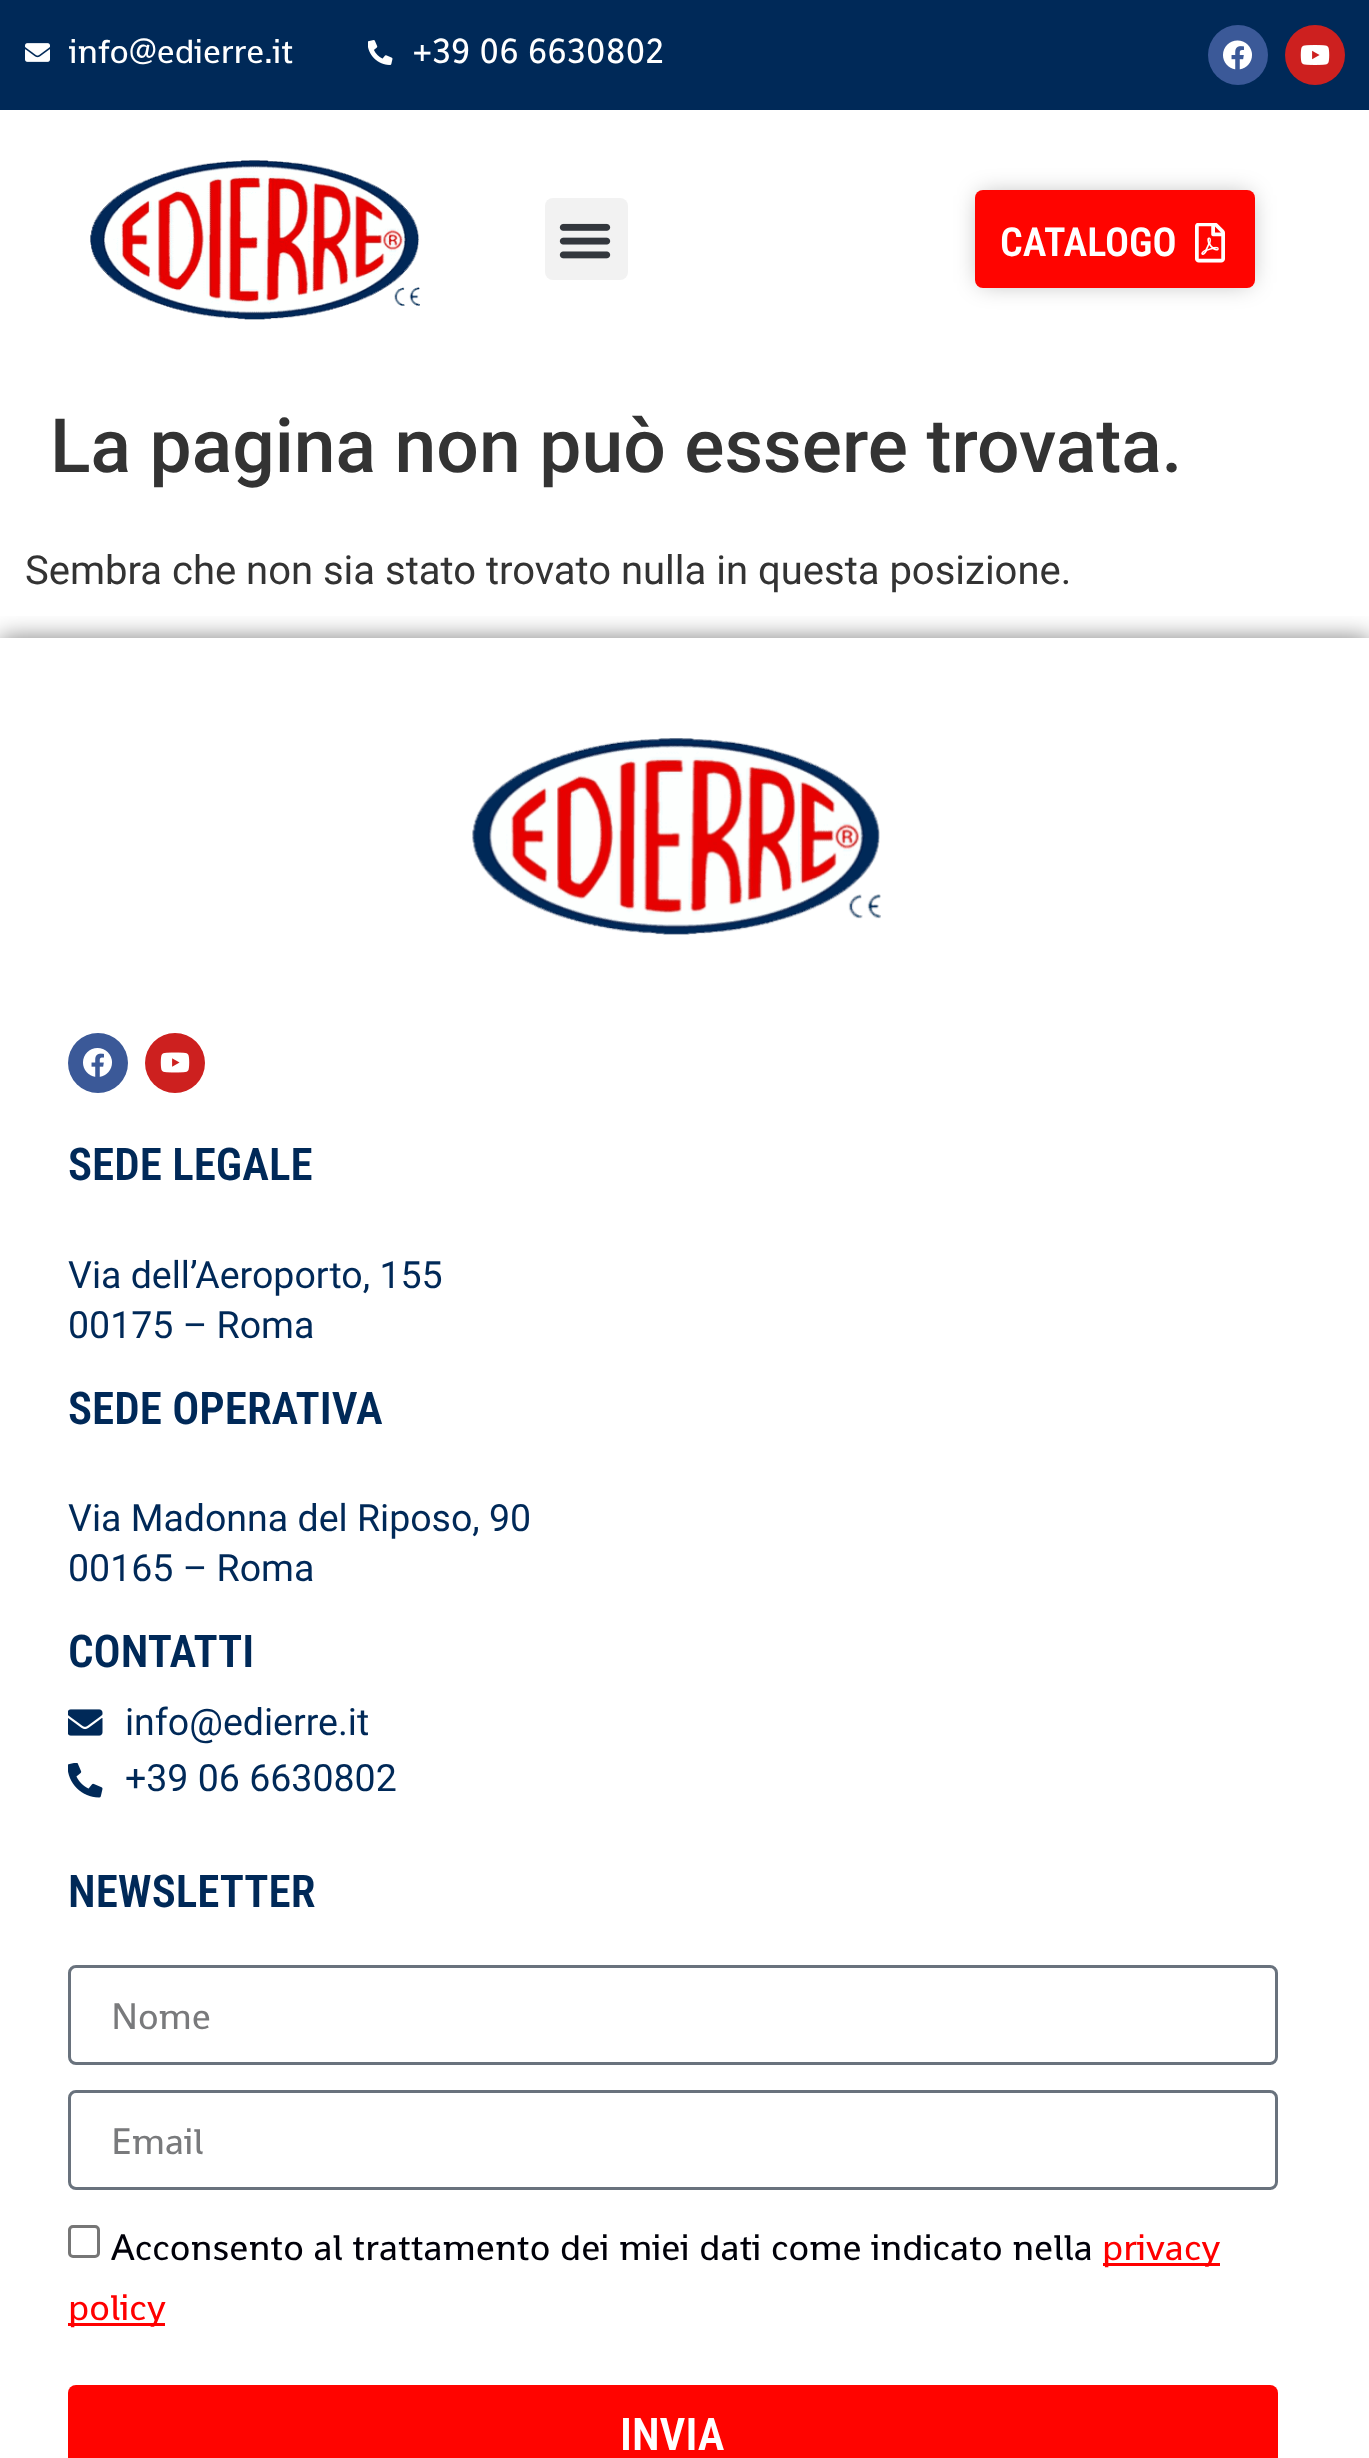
<svg xmlns="http://www.w3.org/2000/svg" width="1369" height="2458" viewBox="0 0 1369 2458">
  <style>
    .t1 { font: 35px Shanti; fill: #fff; }
    .t2 { font: 600 40px Roboto Condensed; fill: #fff; }
    .t3 { font: 500 75px Roboto; fill: #333; }
    .t4 { font: 40px Roboto; fill: #333; }
    .t5 { font: 600 45px Roboto Condensed; fill: #002958; }
    .t6 { font: 37.5px Roboto; fill: #002958; }
    .t7 { font: 37.5px Shanti; fill: #797a7c; }
    .t8 { font: 37.5px Shanti; fill: #000009; }
    .t9 { font: 37.5px Shanti; fill: #f00; }
    .t10 { font: 600 45px Roboto Condensed; fill: #fff; }
  </style>
  <defs>
    <clipPath id="clip1"><rect x="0" y="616" width="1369" height="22"/></clipPath>
  </defs>
  <rect width="100%" height="100%" fill="#fff"/>
  <rect x="0" y="0" width="1369" height="110" fill="#002958"/>
  <image x="25" y="43" width="25" height="19" href="images/1.png"/>
  <text x="69" y="63" class="t1">info@edierre.it</text>
  <image x="368" y="40" width="25" height="25" href="images/2.png"/>
  <text x="412" y="63" class="t1">+39 06 6630802</text>
  <circle cx="1238" cy="55" r="30" fill="#3b5998"/>
  <image x="1223" y="40" width="29" height="30" href="images/3.png"/>
  <circle cx="1315" cy="55" r="30" fill="#cd201f"/>
  <image x="1300" y="45" width="30" height="20" href="images/4.png"/>
  <image x="90" y="160" width="330" height="160" href="images/5.png"/>
  <rect x="545" y="198" width="83" height="82" rx="8" fill="#f2f2f2"/>
  <image x="559" y="223" width="52" height="36" href="images/6.png"/>
  <rect x="980" y="195" width="270" height="88" rx="2.5" fill="#0000004f" filter="blur(12.5px)"/>
  <rect x="975" y="190" width="280" height="98" rx="8" fill="#ff0400"/>
  <text x="1000" y="256" class="t2">CATALOGO</text>
  <image x="1195" y="223" width="30" height="40" href="images/7.png"/>
  <text x="50" y="472" class="t3">La pagina non può essere trovata.</text>
  <text x="25" y="584" class="t4">Sembra che non sia stato trovato nulla in questa posizione.</text>
  <g clip-path="url(#clip1)">
    <rect x="0" y="638" width="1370" height="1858" fill="#00000080" filter="blur(12.5px)"/>
  </g>
  <image x="472" y="738" width="409" height="197" href="images/8.png"/>
  <circle cx="98" cy="1063" r="30" fill="#3b5998"/>
  <image x="83" y="1048" width="29" height="29" href="images/9.png"/>
  <circle cx="175" cy="1063" r="30" fill="#cd201f"/>
  <image x="160" y="1052" width="30" height="21" href="images/10.png"/>
  <text x="68" y="1180" class="t5">SEDE LEGALE</text>
  <text x="68" y="1288" class="t6">Via dell’Aeroporto, 155</text>
  <text x="68" y="1338" class="t6">00175 – Roma</text>
  <text x="68" y="1424" class="t5">SEDE OPERATIVA</text>
  <text x="68" y="1531" class="t6">Via Madonna del Riposo, 90</text>
  <text x="68" y="1581" class="t6">00165 – Roma</text>
  <text x="68" y="1667" class="t5">CONTATTI</text>
  <image x="68" y="1709" width="35" height="27" href="images/11.png"/>
  <text x="125" y="1735" class="t6">info@edierre.it</text>
  <image x="68" y="1763" width="35" height="35" href="images/12.png"/>
  <text x="125" y="1791" class="t6">+39 06 6630802</text>
  <text x="68" y="1907" class="t5">NEWSLETTER</text>
  <rect x="69.5" y="1966.5" width="1207" height="97" rx="6.5" fill="none" stroke="#69727d" stroke-width="3"/>
  <text x="111" y="2029" class="t7">Nome</text>
  <rect x="69.5" y="2091.5" width="1207" height="97" rx="6.5" fill="none" stroke="#69727d" stroke-width="3"/>
  <text x="111" y="2154" class="t7">Email</text>
  <rect x="69.5" y="2226.5" width="29" height="30" rx="3.5" fill="none" stroke="#767676" stroke-width="3"/>
  <text x="111" y="2260" class="t8">Acconsento al trattamento dei miei dati come indicato nella</text>
  <rect x="1103" y="2263" width="117" height="3" fill="#f00"/>
  <text x="1102" y="2260" class="t9">privacy</text>
  <rect x="68" y="2323" width="97" height="3" fill="#f00"/>
  <text x="68" y="2320" class="t9">policy</text>
  <rect x="68" y="2385" width="1210" height="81" rx="8" fill="#ff0400"/>
  <text x="620" y="2450" class="t10">INVIA</text>
</svg>
